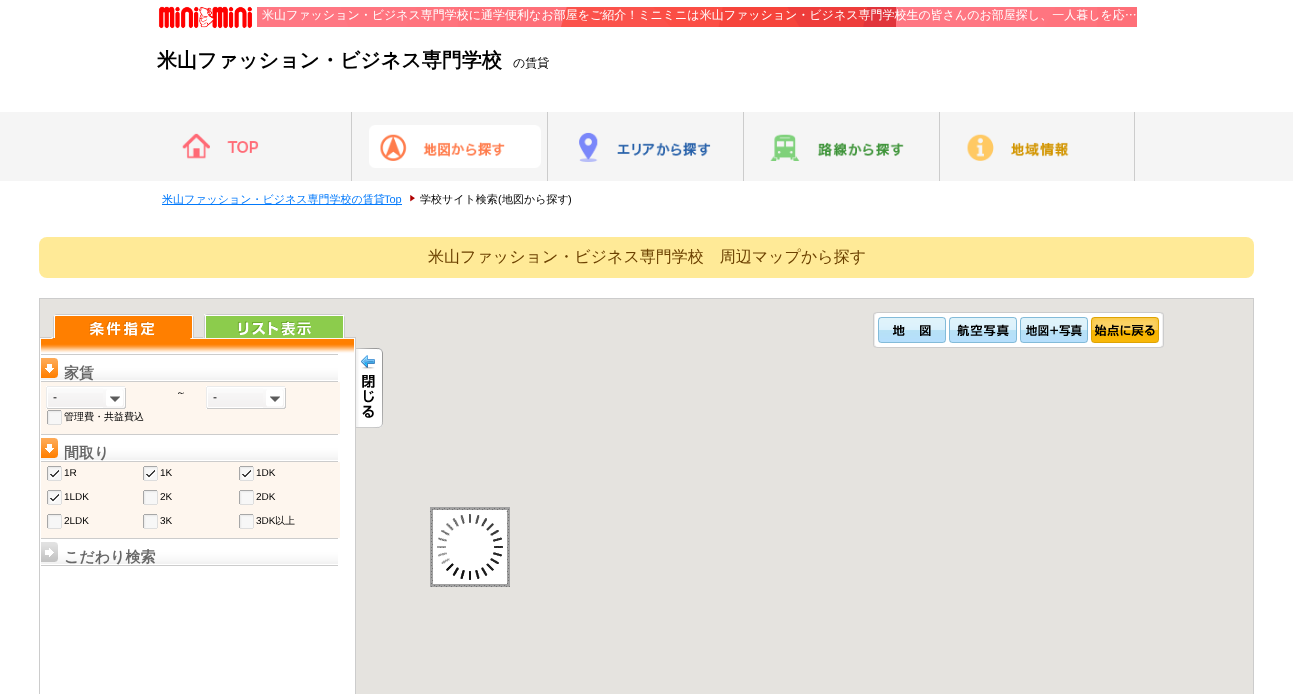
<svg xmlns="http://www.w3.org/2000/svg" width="1293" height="694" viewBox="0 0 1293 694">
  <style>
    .t1 { font: 500 12px WenQuanYi Zen Hei; fill: #fff; }
    .t2 { font: bold 20px WenQuanYi Zen Hei; fill: #000; }
    .t3 { font: 500 12px WenQuanYi Zen Hei; fill: #000; }
    .t4 { font: 500 11px WenQuanYi Zen Hei; fill: #0279fb; }
    .t5 { font: 11px Liberation Sans; fill: #0279fb; }
    .t6 { font: 500 11px WenQuanYi Zen Hei; fill: #000; }
    .t7 { font: 11px Liberation Sans; fill: #000; }
    .t8 { font: 500 16px WenQuanYi Zen Hei; fill: #6c4100; }
    .t9 { font: bold 15px WenQuanYi Zen Hei; fill: #666; }
    .t10 { font: 500 10px WenQuanYi Zen Hei; fill: #000; }
    .t11 { font: 12px Liberation Sans; fill: #000; }
    .t12 { font: 10px Liberation Sans; fill: #000; }
  </style>
  <rect width="100%" height="100%" fill="#fff"/>
  <image x="158" y="6" width="95" height="23" href="images/1.png"/>
  <image x="257" y="7" width="880" height="20" href="images/2.png"/>
  <text x="262" y="19" class="t1">米山ファッション・ビジネス専門学校に通学便利なお部屋をご紹介！ミニミニは米山ファッション・ビジネス専門学校生の皆さんのお部屋探し、一人暮しを応…</text>
  <text x="157" y="67" class="t2">米山ファッション・ビジネス専門学校</text>
  <text x="513" y="67" class="t3">の賃貸</text>
  <rect x="0" y="112" width="1293" height="69" fill="#f5f5f5"/>
  <rect x="351" y="112" width="1" height="69" fill="#ccc"/>
  <image x="182" y="133" width="77" height="26" href="images/3.png"/>
  <rect x="547" y="112" width="1" height="69" fill="#ccc"/>
  <image x="369" y="125" width="172" height="43" href="images/4.png"/>
  <rect x="743" y="112" width="1" height="69" fill="#ccc"/>
  <image x="579" y="132" width="132" height="30" href="images/5.png"/>
  <rect x="939" y="112" width="1" height="69" fill="#ccc"/>
  <image x="770" y="134" width="134" height="27" href="images/6.png"/>
  <rect x="1134" y="112" width="1" height="69" fill="#ccc"/>
  <image x="967" y="134" width="102" height="27" href="images/7.png"/>
  <rect x="162" y="204" width="240" height="1" fill="#0279fb"/>
  <text x="162" y="203" class="t4">米山ファッション・ビジネス専門学校の賃貸</text>
  <text x="384" y="203" class="t5">Top</text>
  <image x="410" y="195" width="5" height="7" href="images/8.png"/>
  <text x="420" y="203" class="t6">学校サイト検索</text>
  <text x="498" y="203" class="t7">(</text>
  <text x="502" y="203" class="t6">地図から探す</text>
  <text x="568" y="203" class="t7">)</text>
  <rect x="39" y="237" width="1215" height="41" rx="8" fill="#ffea97"/>
  <text x="428" y="262" class="t8">米山ファッション・ビジネス専門学校　周辺マップから探す</text>
  <image x="39" y="298" width="1215" height="396" href="images/9.png"/>
  <image x="40" y="337" width="316" height="17" href="images/12.png"/>
  <image x="53" y="314" width="141" height="24" href="images/10.png"/>
  <image x="204" y="314" width="141" height="24" href="images/11.png"/>
  <rect x="40" y="354" width="315" height="340" fill="#fff"/>
  <rect x="355" y="354" width="1" height="340" fill="#ccc"/>
  <image x="41" y="354" width="297" height="28" href="images/13.png"/>
  <text x="64" y="378" class="t9">家賃</text>
  <rect x="41" y="382" width="299" height="52" fill="#fef6ee"/>
  <text x="176" y="396" class="t10">～</text>
  <image x="46" y="386" width="79" height="23" href="images/14.png"/>
  <text x="53" y="401" class="t11">-</text>
  <image x="103" y="388" width="23" height="20" href="images/15.png"/>
  <image x="206" y="386" width="79" height="23" href="images/14.png"/>
  <text x="213" y="401" class="t11">-</text>
  <image x="263" y="388" width="23" height="20" href="images/15.png"/>
  <image x="47" y="410" width="15" height="15" href="images/16.png"/>
  <text x="64" y="420" class="t10">管理費・共益費込</text>
  <image x="41" y="434" width="297" height="28" href="images/13.png"/>
  <text x="64" y="458" class="t9">間取り</text>
  <rect x="41" y="462" width="299" height="76" fill="#fef6ee"/>
  <image x="47" y="466" width="15" height="15" href="images/17.png"/>
  <text x="64" y="476" class="t12">1R</text>
  <image x="143" y="466" width="15" height="15" href="images/17.png"/>
  <text x="160" y="476" class="t12">1K</text>
  <image x="239" y="466" width="15" height="15" href="images/17.png"/>
  <text x="256" y="476" class="t12">1DK</text>
  <image x="47" y="490" width="15" height="15" href="images/17.png"/>
  <text x="64" y="500" class="t12">1LDK</text>
  <image x="143" y="490" width="15" height="15" href="images/16.png"/>
  <text x="160" y="500" class="t12">2K</text>
  <image x="239" y="490" width="15" height="15" href="images/16.png"/>
  <text x="256" y="500" class="t12">2DK</text>
  <image x="47" y="514" width="15" height="15" href="images/16.png"/>
  <text x="64" y="524" class="t12">2LDK</text>
  <image x="143" y="514" width="15" height="15" href="images/16.png"/>
  <text x="160" y="524" class="t12">3K</text>
  <image x="239" y="514" width="15" height="15" href="images/16.png"/>
  <text x="256" y="524" class="t12">3DK</text>
  <text x="275" y="524" class="t10">以上</text>
  <image x="41" y="538" width="297" height="28" href="images/18.png"/>
  <text x="64" y="562" class="t9">こだわり検索</text>
  <image x="356" y="348" width="27" height="80" href="images/19.png"/>
</svg>
